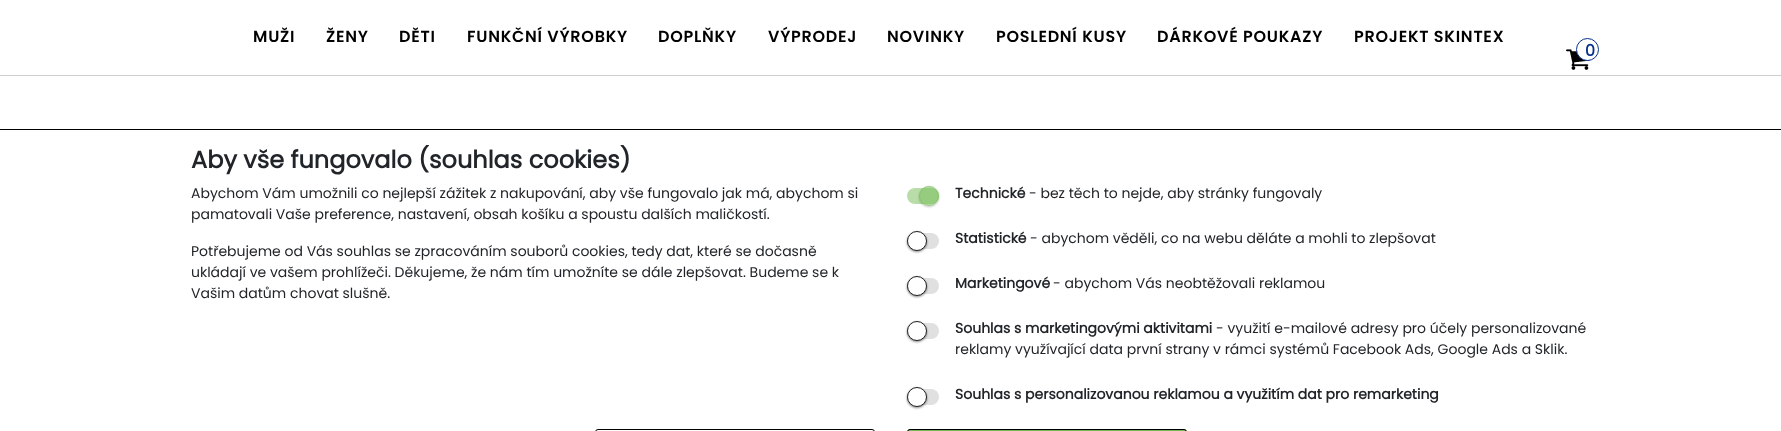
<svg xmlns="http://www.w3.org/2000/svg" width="1781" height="431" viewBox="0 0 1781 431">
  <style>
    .t1 { font: 600 16px Poppins; letter-spacing: 0.75px; fill: #000; }
    .t2 { font: bold 16px Poppins; letter-spacing: 0.75px; fill: #07308a; }
    .t3 { font: bold 24px Poppins; fill: #212529; }
    .t4 { font: 14px Poppins; fill: #212529; }
    .t5 { font: bold 14px Poppins; fill: #212529; }
  </style>
  <defs>
    <clipPath id="clip1"><path d="M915 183H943V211H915ZM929 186C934.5 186 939 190.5 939 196C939 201.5 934.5 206 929 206C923.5 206 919 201.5 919 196C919 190.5 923.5 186 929 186Z" clip-rule="evenodd"/></clipPath>
  </defs>
  <rect width="100%" height="100%" fill="#fff"/>
  <rect x="0" y="75" width="1781" height="1" fill="#cfcfcf"/>
  <text x="253" y="42" class="t1">MUŽI</text>
  <text x="326" y="42" class="t1">ŽENY</text>
  <text x="399" y="42" class="t1">DĚTI</text>
  <text x="467" y="42" class="t1">FUNKČNÍ VÝROBKY</text>
  <text x="658" y="42" class="t1">DOPLŇKY</text>
  <text x="768" y="42" class="t1">VÝPRODEJ</text>
  <text x="887" y="42" class="t1">NOVINKY</text>
  <text x="996" y="42" class="t1">POSLEDNÍ KUSY</text>
  <text x="1157" y="42" class="t1">DÁRKOVÉ POUKAZY</text>
  <text x="1354" y="42" class="t1">PROJEKT SKINTEX</text>
  <image x="1566" y="49" width="24" height="21" href="images/1.png"/>
  <circle cx="1587.5" cy="49.5" r="11" fill="#fff" stroke="#07308a"/>
  <text x="1585" y="56" class="t2">0</text>
  <rect x="0" y="129" width="1781" height="1" fill="#000"/>
  <text x="191" y="168" class="t3">Aby vše fungovalo (souhlas cookies)</text>
  <text x="191" y="198" class="t4">Abychom Vám umožnili co nejlepší zážitek z nakupování, aby vše fungovalo jak má, abychom si</text>
  <text x="191" y="219" class="t4">pamatovali Vaše preference, nastavení, obsah košíku a spoustu dalších maličkostí.</text>
  <text x="191" y="256" class="t4">Potřebujeme od Vás souhlas se zpracováním souborů cookies, tedy dat, které se dočasně</text>
  <text x="191" y="277" class="t4">ukládají ve vašem prohlížeči. Děkujeme, že nám tím umožníte se dále zlepšovat. Budeme se k</text>
  <text x="191" y="298" class="t4">Vašim datům chovat slušně.</text>
  <rect x="907" y="188" width="32" height="16" rx="8" fill="#b9dda9"/>
  <g clip-path="url(#clip1)">
    <rect x="919" y="187" width="20" height="20" rx="10" fill="#00000040" filter="blur(1px)"/>
  </g>
  <circle cx="929" cy="196" r="10" fill="#72bb5380"/>
  <circle cx="929" cy="196" r="9.5" fill="none" stroke="#72bb5380"/>
  <text x="955" y="198" class="t5">Technické</text>
  <text x="1029" y="198" class="t4">- bez těch to nejde, aby stránky fungovaly</text>
  <rect x="907" y="233" width="32" height="16" rx="8" fill="#e0e0e0"/>
  <rect x="907" y="232" width="20" height="20" rx="10" fill="#00000080" filter="blur(1px)"/>
  <circle cx="917" cy="241" r="9.5" fill="#fff" stroke="#222"/>
  <text x="955" y="243" class="t5">Statistické</text>
  <text x="1030" y="243" class="t4">- abychom věděli, co na webu děláte a mohli to zlepšovat</text>
  <rect x="907" y="278" width="32" height="16" rx="8" fill="#e0e0e0"/>
  <rect x="907" y="277" width="20" height="20" rx="10" fill="#00000080" filter="blur(1px)"/>
  <circle cx="917" cy="286" r="9.5" fill="#fff" stroke="#222"/>
  <text x="955" y="288" class="t5">Marketingové</text>
  <text x="1053" y="288" class="t4">- abychom Vás neobtěžovali reklamou</text>
  <rect x="907" y="323" width="32" height="16" rx="8" fill="#e0e0e0"/>
  <rect x="907" y="322" width="20" height="20" rx="10" fill="#00000080" filter="blur(1px)"/>
  <circle cx="917" cy="331" r="9.5" fill="#fff" stroke="#222"/>
  <text x="955" y="333" class="t5">Souhlas s marketingovými aktivitami</text>
  <text x="1216" y="333" class="t4">- využití e-mailové adresy pro účely personalizované</text>
  <text x="955" y="354" class="t4">reklamy využívající data první strany v rámci systémů Facebook Ads, Google Ads a Sklik.</text>
  <rect x="907" y="389" width="32" height="16" rx="8" fill="#e0e0e0"/>
  <rect x="907" y="388" width="20" height="20" rx="10" fill="#00000080" filter="blur(1px)"/>
  <circle cx="917" cy="397" r="9.5" fill="#fff" stroke="#222"/>
  <text x="955" y="399" class="t5">Souhlas s personalizovanou reklamou a využitím dat pro remarketing</text>
  <rect x="595.5" y="429.5" width="279" height="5" rx="2.5" fill="none" stroke="#000"/>
  <path d="M910 429H1184C1185.5 429 1187 430.5 1187 432V431H907V432C907 430.5 908.5 429 910 429Z" fill="#72bb53"/>
  <rect x="907.5" y="429.5" width="279" height="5" rx="2.5" fill="none" stroke="#000"/>
</svg>
